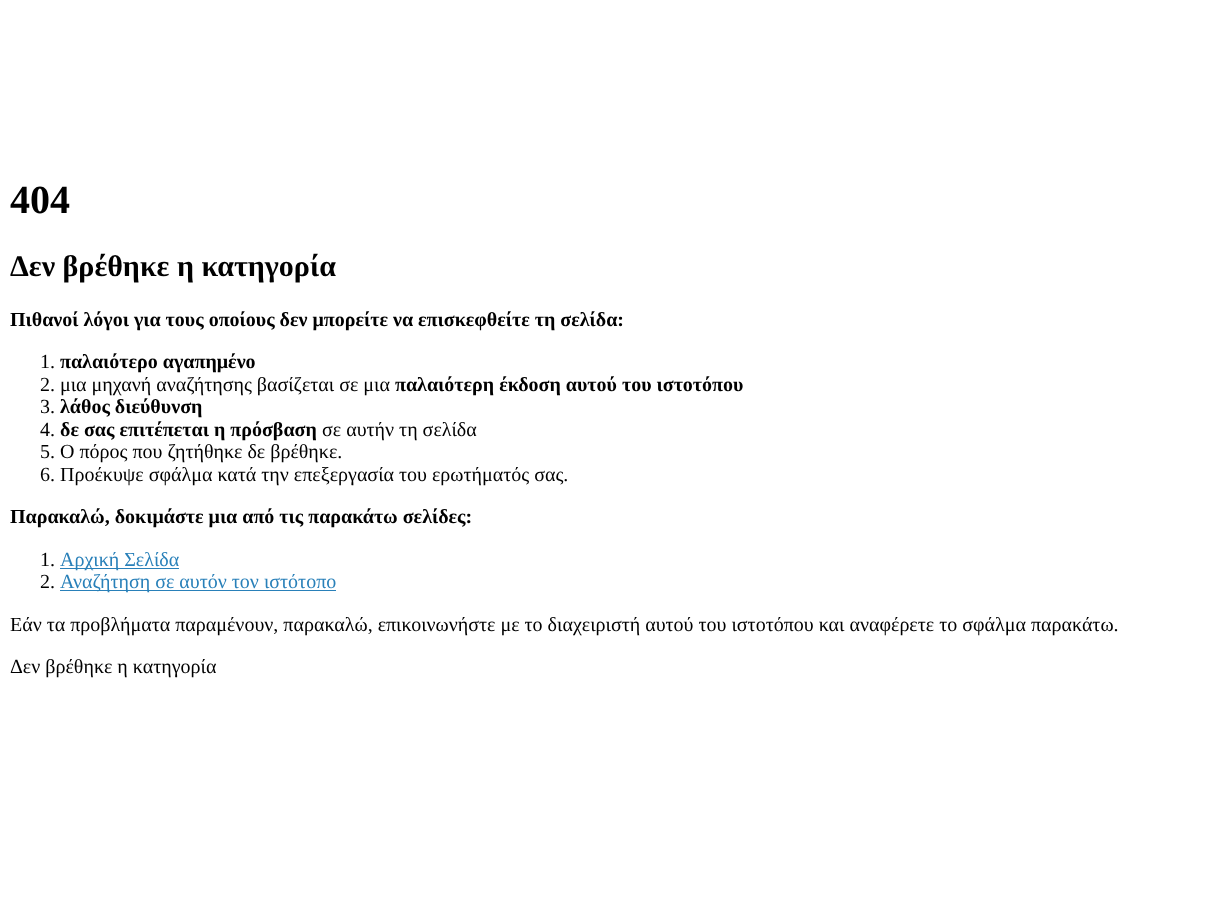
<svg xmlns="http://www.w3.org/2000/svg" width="1231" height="910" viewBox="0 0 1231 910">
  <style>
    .t1 { font: bold 40px Liberation Serif; fill: #000; }
    .t2 { font: bold 30px Liberation Serif; fill: #000; }
    .t3 { font: bold 20px Liberation Serif; fill: #000; }
    .t4 { font: 20px Liberation Serif; fill: #000; }
    .t5 { font: 20px Liberation Serif; fill: #2980b9; }
  </style>
  <rect width="100%" height="100%" fill="#fff"/>
  <text x="10" y="213" class="t1">404</text>
  <text x="10" y="276" class="t2">Δεν βρέθηκε η κατηγορία</text>
  <text x="10" y="326" class="t3">Πιθανοί λόγοι για τους οποίους δεν μπορείτε να επισκεφθείτε τη σελίδα:</text>
  <text x="40" y="368" class="t4">1.</text>
  <text x="60" y="368" class="t3">παλαιότερο αγαπημένο</text>
  <text x="40" y="391" class="t4">2. μια μηχανή αναζήτησης βασίζεται σε μια</text>
  <text x="395" y="391" class="t3">παλαιότερη έκδοση αυτού του ιστοτόπου</text>
  <text x="40" y="413" class="t4">3.</text>
  <text x="60" y="413" class="t3">λάθος διεύθυνση</text>
  <text x="40" y="436" class="t4">4.</text>
  <text x="60" y="436" class="t3">δε σας επιτέπεται η πρόσβαση</text>
  <text x="322" y="436" class="t4">σε αυτήν τη σελίδα</text>
  <text x="40" y="458" class="t4">5. Ο πόρος που ζητήθηκε δε βρέθηκε.</text>
  <text x="40" y="481" class="t4">6. Προέκυψε σφάλμα κατά την επεξεργασία του ερωτήματός σας.</text>
  <text x="10" y="523" class="t3">Παρακαλώ, δοκιμάστε μια από τις παρακάτω σελίδες:</text>
  <text x="40" y="566" class="t4">1.</text>
  <rect x="60" y="568" width="119" height="1" fill="#2980b9"/>
  <text x="60" y="566" class="t5">Αρχική Σελίδα</text>
  <text x="40" y="588" class="t4">2.</text>
  <rect x="60" y="590" width="276" height="1" fill="#2980b9"/>
  <text x="60" y="588" class="t5">Αναζήτηση σε αυτόν τον ιστότοπο</text>
  <text x="10" y="631" class="t4">Εάν τα προβλήματα παραμένουν, παρακαλώ, επικοινωνήστε με το διαχειριστή αυτού του ιστοτόπου και αναφέρετε το σφάλμα παρακάτω.</text>
  <text x="10" y="673" class="t4">Δεν βρέθηκε η κατηγορία</text>
</svg>
